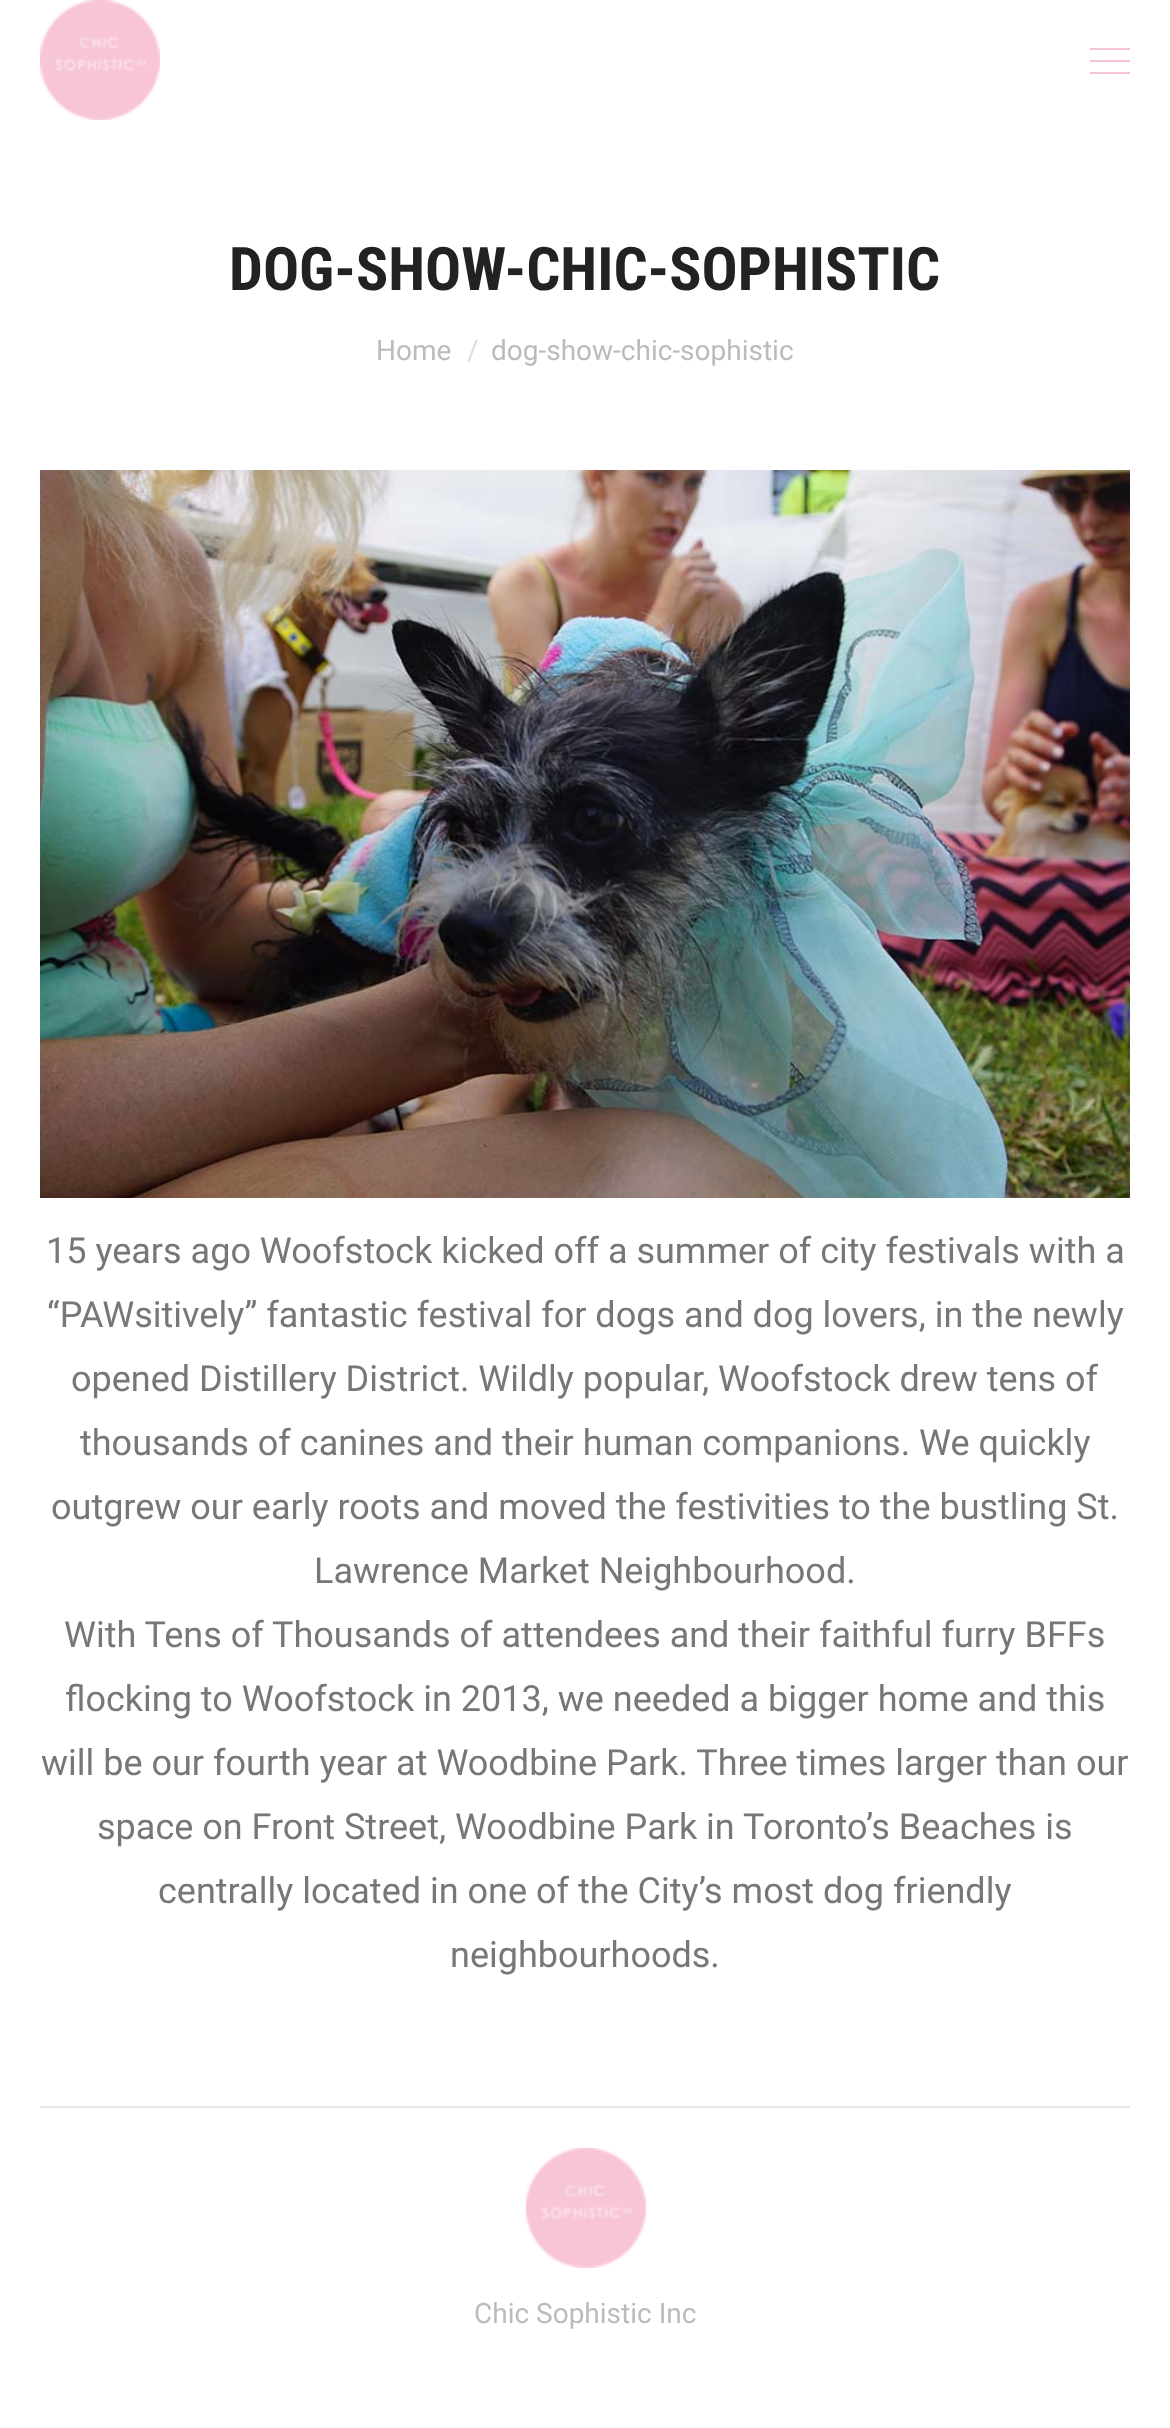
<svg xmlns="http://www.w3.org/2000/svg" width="1170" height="2428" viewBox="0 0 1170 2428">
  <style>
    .t1 { font: bold 60px Roboto Condensed; fill: #222; }
    .t2 { font: 28px Roboto; fill: #bbb; }
    .t3 { font: 28px Roboto; fill: #ddd; }
    .t4 { font: 36px Roboto; fill: #777; }
  </style>
  <rect width="100%" height="100%" fill="#fff"/>
  <image x="40" y="0" width="120" height="120" href="images/1.png"/>
  <rect x="1090" y="48" width="40" height="2" fill="#f8c5d8"/>
  <rect x="1090" y="60" width="40" height="2" fill="#f8c5d8"/>
  <rect x="1090" y="72" width="40" height="2" fill="#f8c5d8"/>
  <text x="229" y="290" class="t1">DOG-SHOW-CHIC-SOPHISTIC</text>
  <text x="376" y="360" class="t2">Home</text>
  <text x="467" y="360" class="t3">/</text>
  <text x="491" y="360" class="t2">dog-show-chic-sophistic</text>
  <image x="40" y="470" width="1090" height="728" href="images/2.png"/>
  <text x="46" y="1263" class="t4">15 years ago Woofstock kicked off a summer of city festivals with a</text>
  <text x="47" y="1327" class="t4">“PAWsitively” fantastic festival for dogs and dog lovers, in the newly</text>
  <text x="71" y="1391" class="t4">opened Distillery District. Wildly popular, Woofstock drew tens of</text>
  <text x="80" y="1455" class="t4">thousands of canines and their human companions. We quickly</text>
  <text x="51" y="1519" class="t4">outgrew our early roots and moved the festivities to the bustling St.</text>
  <text x="314" y="1583" class="t4">Lawrence Market Neighbourhood.</text>
  <text x="64" y="1647" class="t4">With Tens of Thousands of attendees and their faithful furry BFFs</text>
  <text x="65" y="1711" class="t4">flocking to Woofstock in 2013, we needed a bigger home and this</text>
  <text x="41" y="1775" class="t4">will be our fourth year at Woodbine Park. Three times larger than our</text>
  <text x="97" y="1839" class="t4">space on Front Street, Woodbine Park in Toronto’s Beaches is</text>
  <text x="158" y="1903" class="t4">centrally located in one of the City’s most dog friendly</text>
  <text x="450" y="1967" class="t4">neighbourhoods.</text>
  <rect x="40" y="2106" width="1090" height="2" fill="#e6e6e6"/>
  <image x="526" y="2148" width="120" height="120" href="images/1.png"/>
  <text x="474" y="2323" class="t2">Chic Sophistic Inc</text>
</svg>
